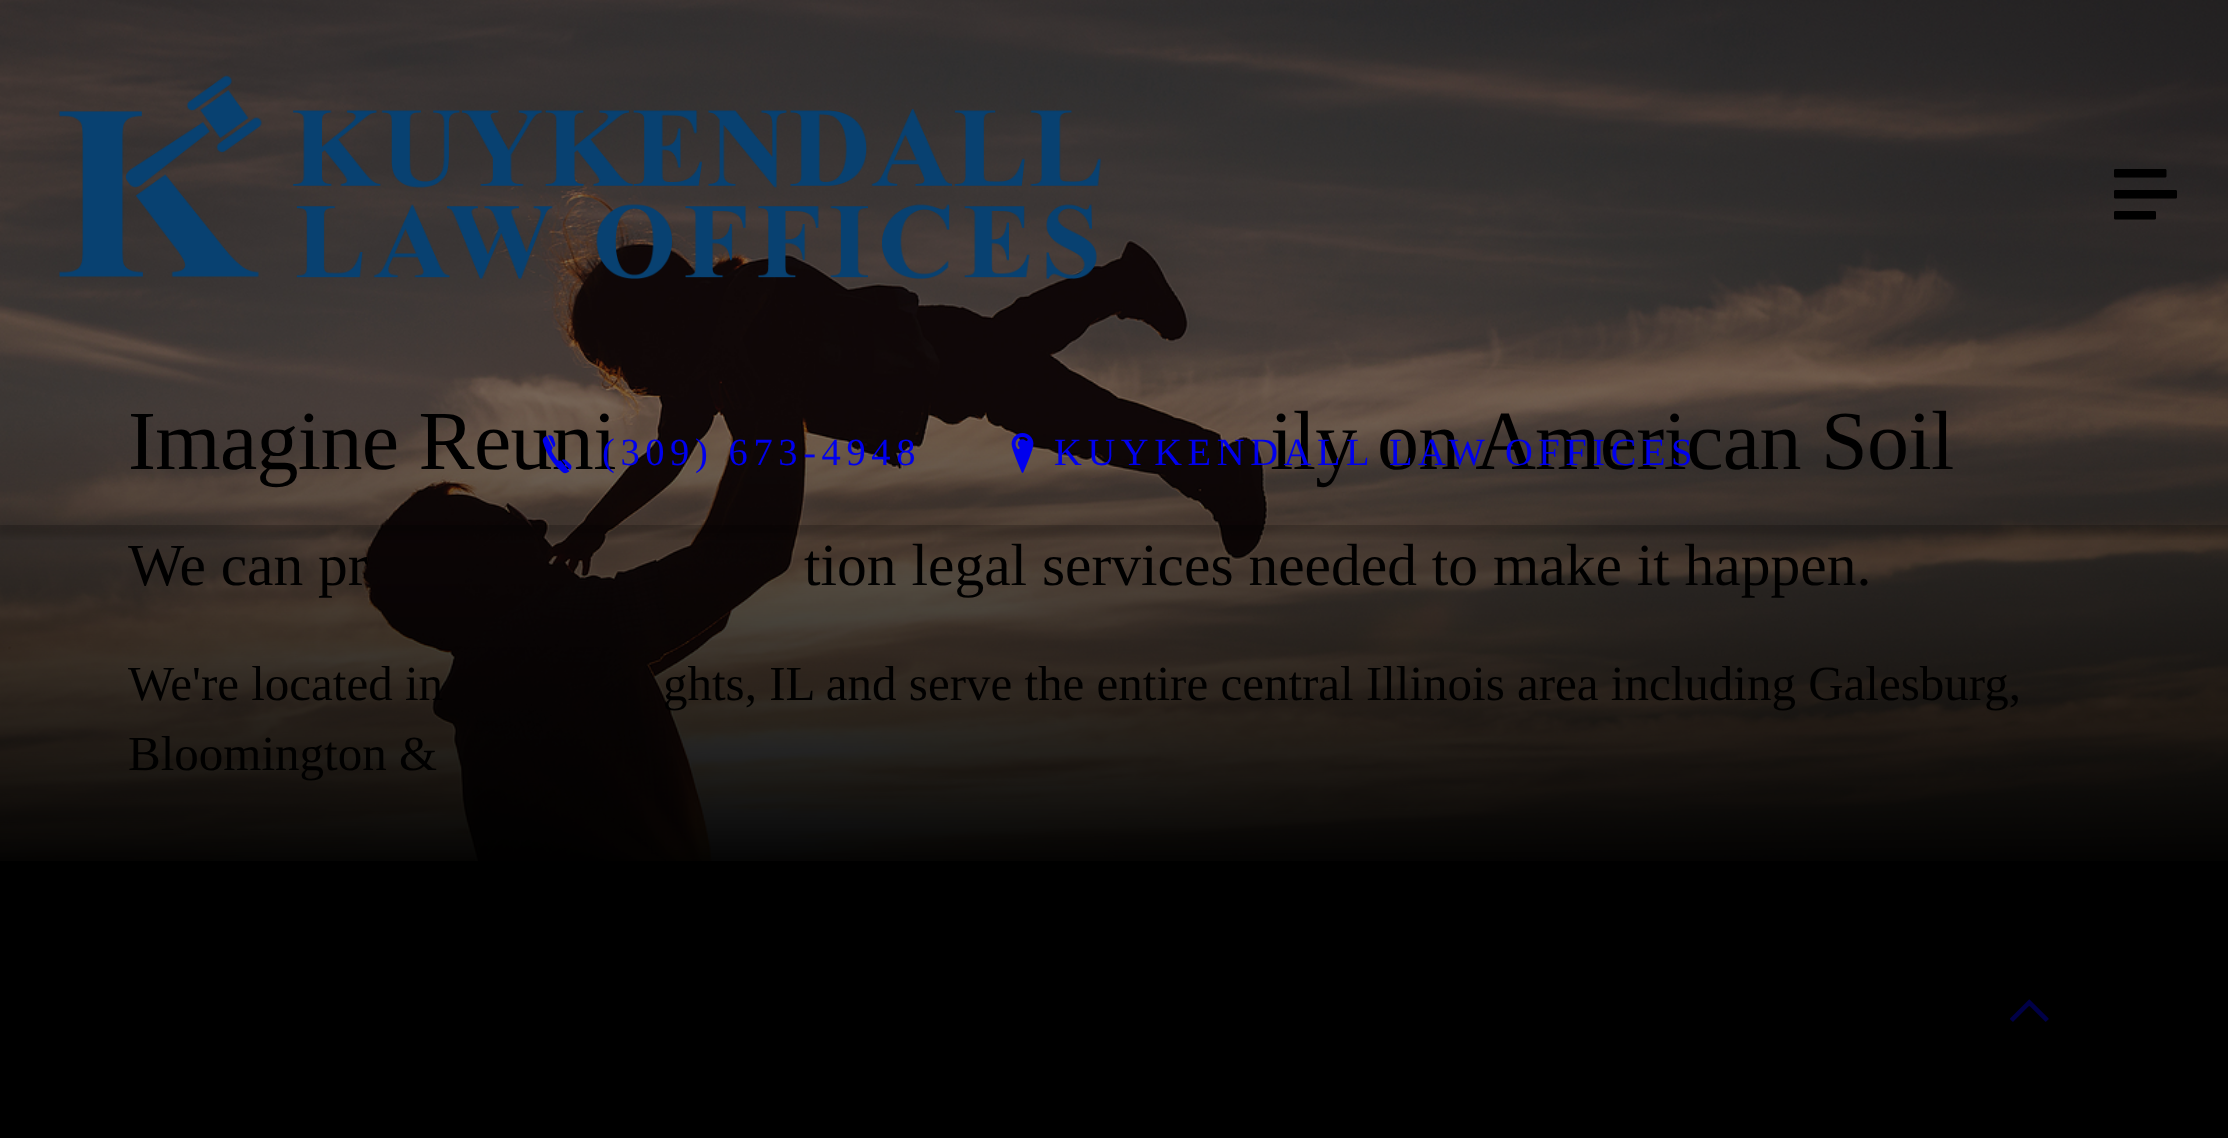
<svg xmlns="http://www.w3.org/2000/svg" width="2228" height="1138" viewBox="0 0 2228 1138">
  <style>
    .t1 { font: 84px Liberation Serif; letter-spacing: -0.7px; fill: #000; }
    .t2 { font: 59.5px Liberation Serif; fill: #000; }
    .t3 { font: 49px Liberation Serif; fill: #000; }
    .t4 { font: 38.5px Liberation Serif; letter-spacing: 5.6px; fill: #00e; }
    .t5 { font: 50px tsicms; fill: #000047; }
  </style>
  <defs>
    <clipPath id="clip1"><rect x="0" y="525" width="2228" height="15"/></clipPath>
  </defs>
  <rect width="100%" height="100%" fill="#000"/>
  <image x="0" y="0" width="2228" height="861" href="images/1.png"/>
  <text x="128" y="469" class="t1">Imagine Reuni</text>
  <text x="1270" y="469" class="t1">ily on American Soil</text>
  <text x="128" y="585" class="t2">We can pr</text>
  <text x="804" y="585" class="t2">tion legal services needed to make it happen.</text>
  <text x="128" y="700" class="t3">We're located in</text>
  <text x="663" y="700" class="t3">ghts, IL and serve the entire central Illinois area including Galesburg,</text>
  <text x="128" y="770" class="t3">Bloomington &amp;</text>
  <image x="59" y="75" width="1042" height="204" href="images/2.png"/>
  <image x="2114" y="169" width="63" height="51" href="images/3.png"/>
  <g clip-path="url(#clip1)">
    <rect x="-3" y="396" width="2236" height="140" fill="#00000033" filter="blur(3.5px)"/>
  </g>
  <image x="542" y="435" width="30" height="39" href="images/4.png"/>
  <text x="602" y="465" class="t4">(309) 673-4948</text>
  <image x="1011" y="433" width="23" height="40" href="images/5.png"/>
  <text x="1054" y="465" class="t4">KUYKENDALL LAW OFFICES</text>
  <text x="2010" y="1031" class="t5">+</text>
</svg>
